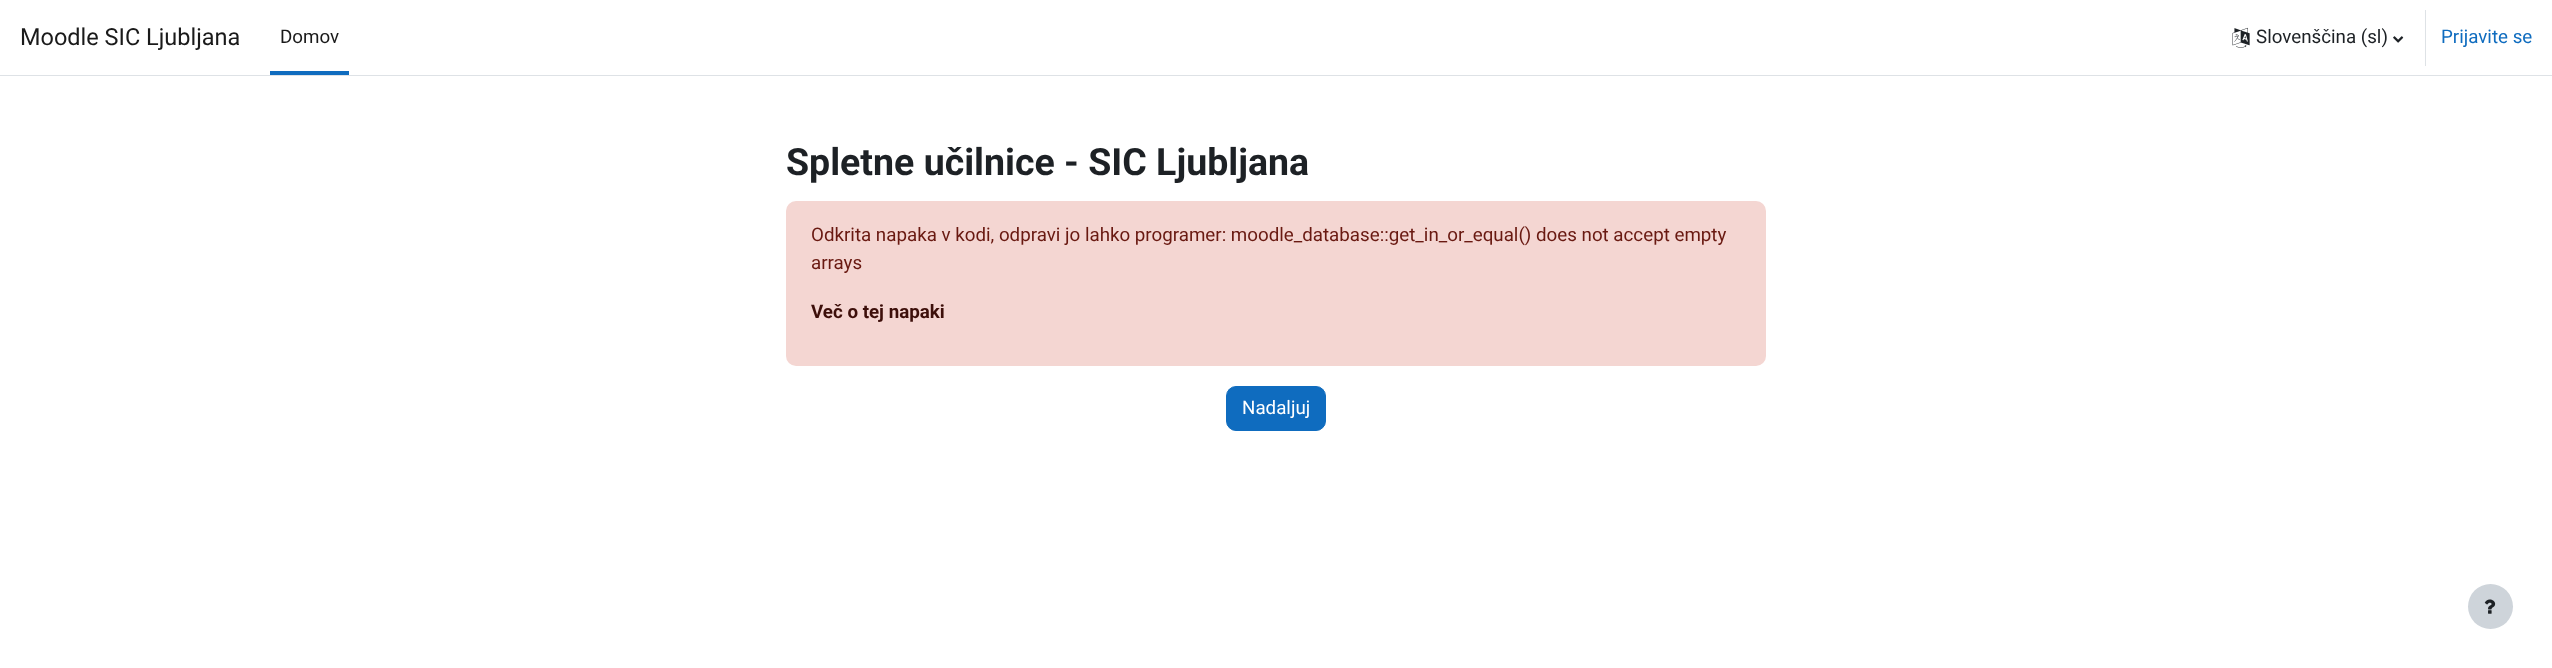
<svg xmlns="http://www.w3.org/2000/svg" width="2552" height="668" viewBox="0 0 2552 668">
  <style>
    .t1 { font: 23.5px Roboto; fill: #1a1a1a; }
    .t2 { font: 18.75px Roboto; fill: #1a1a1a; }
    .t3 { font: 18.75px Roboto; fill: #1d2125; }
    .t4 { font: 18.75px Roboto; fill: #0f6cbf; }
    .t5 { font: bold 37.5px Roboto; fill: #1d2125; }
    .t6 { font: 18.75px Roboto; fill: #691911; }
    .t7 { font: bold 18.75px Roboto; fill: #3d0f0a; }
    .t8 { font: 18.75px Roboto; fill: #fff; }
  </style>
  <rect width="100%" height="100%" fill="#fff"/>
  <rect x="0" y="75" width="2552" height="1" fill="#dee2e6"/>
  <text x="20" y="45" class="t1">Moodle SIC Ljubljana</text>
  <rect x="270" y="71" width="79" height="4" fill="#0f6cbf"/>
  <text x="280" y="43" class="t2">Domov</text>
  <image x="2232" y="27" width="18" height="21" href="images/1.png"/>
  <text x="2256" y="43" class="t3">Slovenščina (sl)</text>
  <image x="2393" y="36" width="11" height="7" href="images/2.png"/>
  <rect x="2425" y="10" width="1" height="56" fill="#dee2e6"/>
  <text x="2441" y="43" class="t4">Prijavite se</text>
  <text x="786" y="175" class="t5">Spletne učilnice - SIC Ljubljana</text>
  <rect x="786" y="201" width="980" height="165" rx="10" fill="#f4d6d2"/>
  <text x="811" y="241" class="t6">Odkrita napaka v kodi, odpravi jo lahko programer: moodle_database::get_in_or_equal() does not accept empty</text>
  <text x="811" y="269" class="t6">arrays</text>
  <text x="811" y="318" class="t7">Več o tej napaki</text>
  <rect x="1226.5" y="386.5" width="99" height="44" rx="9.5" fill="#0f6cbf" stroke="#0f6cbf"/>
  <text x="1242" y="414" class="t8">Nadaljuj</text>
  <circle cx="2490.5" cy="606.5" r="22.5" fill="#ced4da"/>
  <image x="2484" y="599" width="12" height="15" href="images/3.png"/>
</svg>
